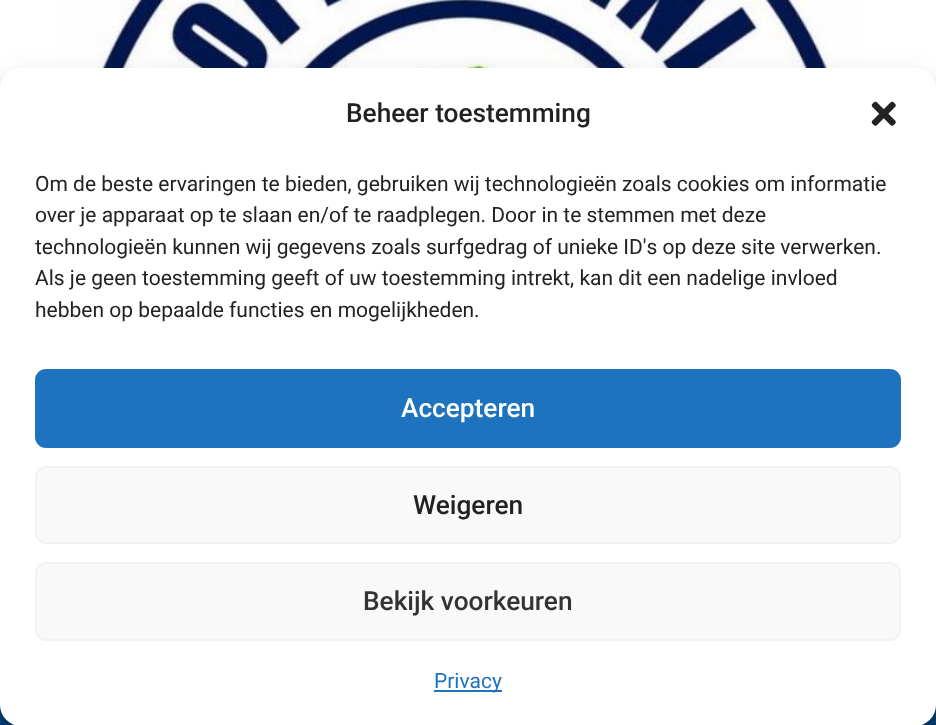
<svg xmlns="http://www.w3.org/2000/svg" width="936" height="725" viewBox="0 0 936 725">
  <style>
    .t1 { font: 500 26.25px Roboto; fill: #222; }
    .t2 { font: 21px Roboto; fill: #222; }
    .t3 { font: 500 26.25px Roboto; fill: #fff; }
    .t4 { font: 500 26.25px Roboto; fill: #333; }
    .t5 { font: 21px Roboto; fill: #1e73be; }
  </style>
  <rect width="100%" height="100%" fill="#fff"/>
  <image x="55" y="0" width="811" height="68" href="images/1.png"/>
  <rect x="0" y="705" width="936" height="20" fill="#004884"/>
  <rect x="0" y="79" width="936" height="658" rx="21" fill="#0000003b" filter="blur(5px)"/>
  <rect x="0" y="86" width="936" height="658" rx="21" fill="#00000030" filter="blur(17.5px)"/>
  <rect x="0" y="68" width="936" height="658" rx="21" fill="#fff"/>
  <text x="346" y="122" class="t1">Beheer toestemming</text>
  <image x="871" y="101" width="25" height="25" href="images/2.png"/>
  <text x="35" y="191" class="t2">Om de beste ervaringen te bieden, gebruiken wij technologieën zoals cookies om informatie</text>
  <text x="35" y="222" class="t2">over je apparaat op te slaan en/of te raadplegen. Door in te stemmen met deze</text>
  <text x="35" y="254" class="t2">technologieën kunnen wij gegevens zoals surfgedrag of unieke ID's op deze site verwerken.</text>
  <text x="35" y="285" class="t2">Als je geen toestemming geeft of uw toestemming intrekt, kan dit een nadelige invloed</text>
  <text x="35" y="317" class="t2">hebben op bepaalde functies en mogelijkheden.</text>
  <rect x="36" y="370" width="864" height="77" rx="10" fill="#1e73be" stroke="#1e73be" stroke-width="2"/>
  <text x="401" y="417" class="t3">Accepteren</text>
  <rect x="36" y="467" width="864" height="76" rx="10" fill="#f9f9f9" stroke="#f2f2f2" stroke-width="2"/>
  <text x="413" y="514" class="t1">Weigeren</text>
  <rect x="36" y="563" width="864" height="77" rx="10" fill="#f9f9f9" stroke="#f2f2f2" stroke-width="2"/>
  <text x="363" y="610" class="t4">Bekijk voorkeuren</text>
  <rect x="434" y="690" width="68" height="2" fill="#1e73be"/>
  <text x="434" y="688" class="t5">Privacy</text>
</svg>
